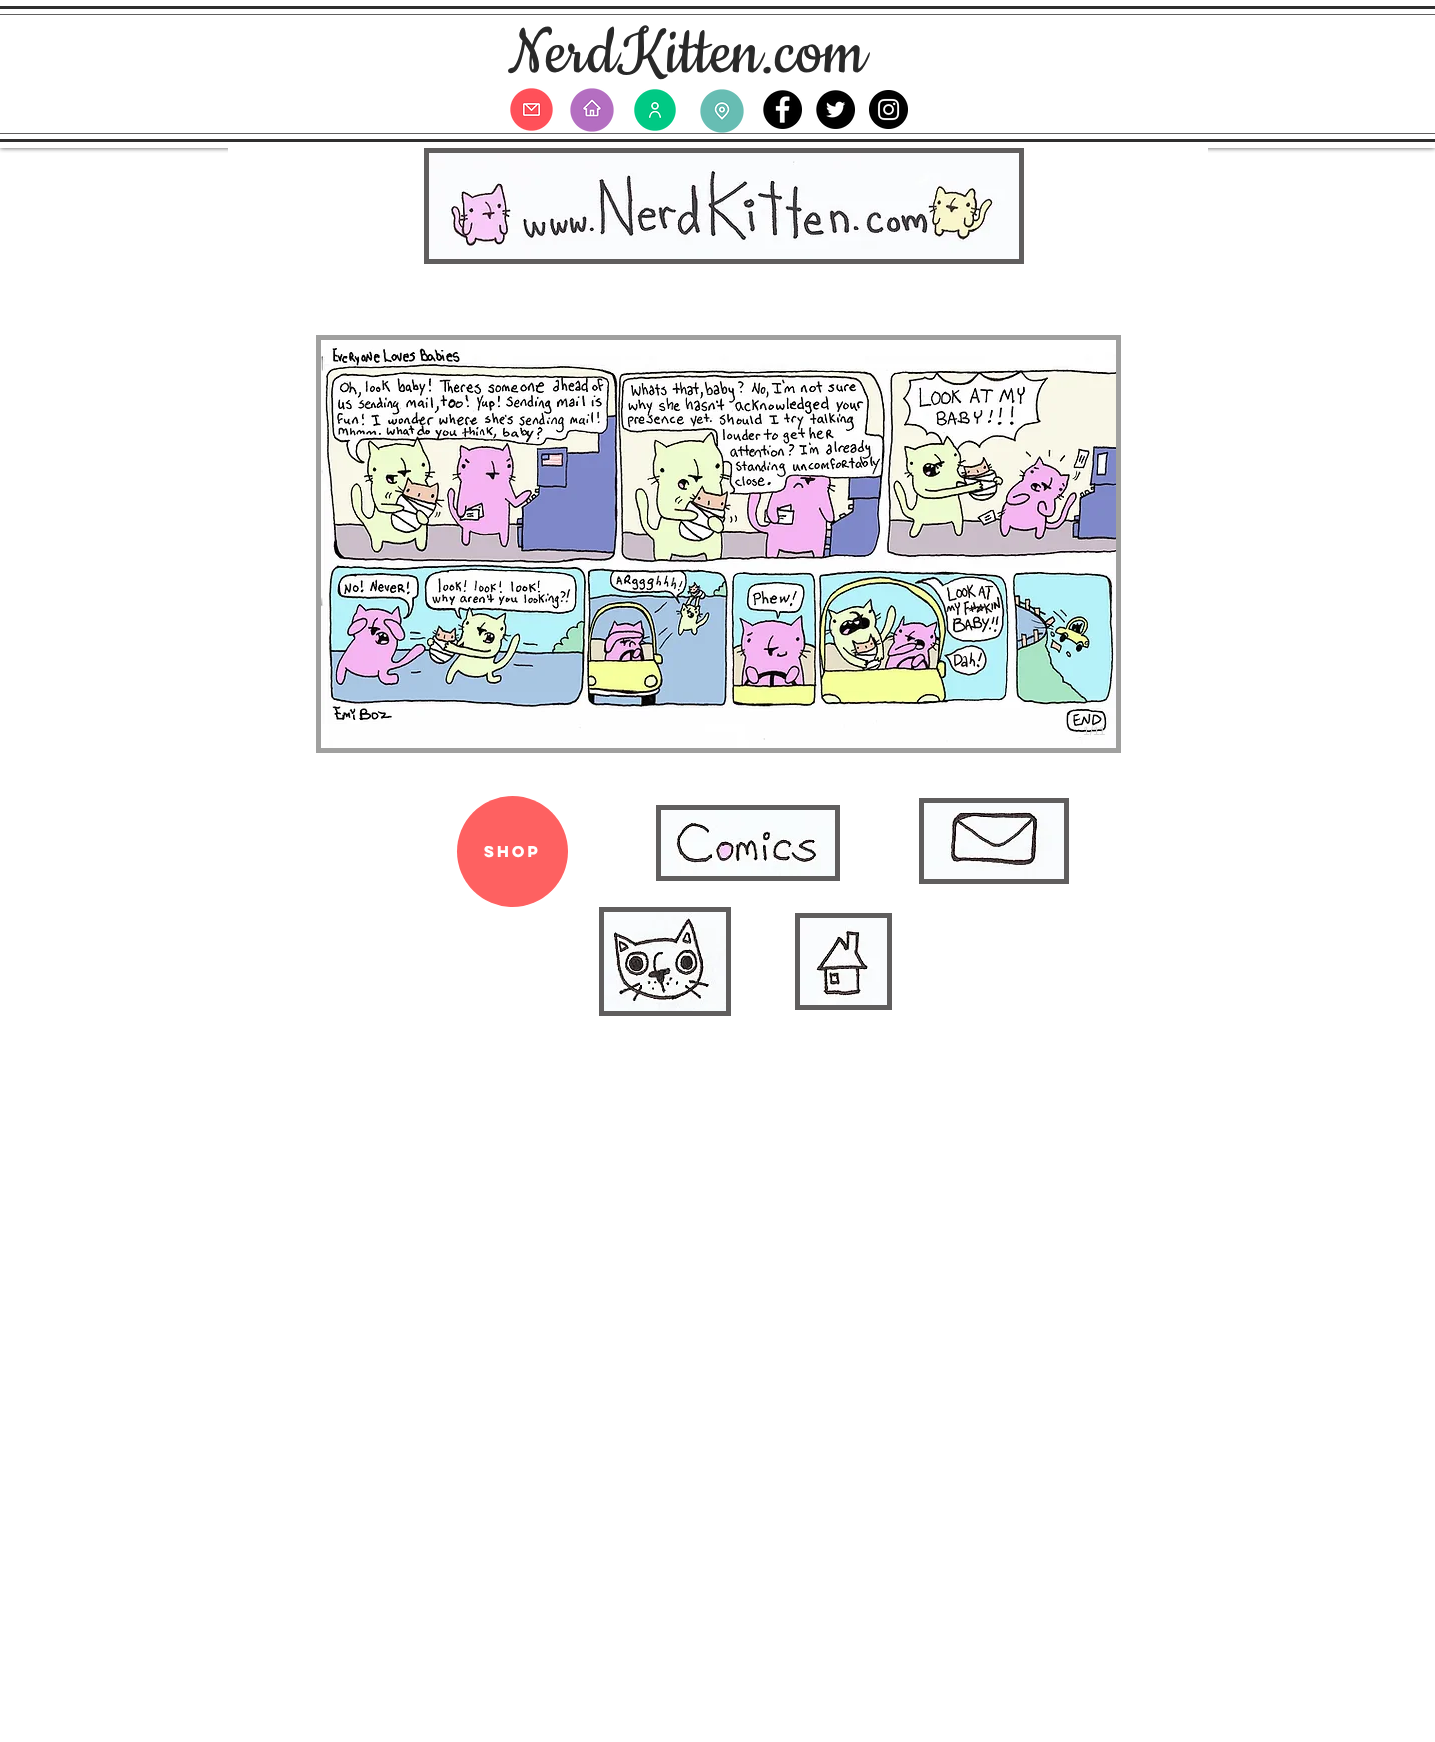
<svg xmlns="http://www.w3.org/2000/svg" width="1435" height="1742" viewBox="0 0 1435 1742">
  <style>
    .t1 { font: 76px Cookie; fill: #292929; }
    .t2 { font: 12px Liberation Sans; fill: #d7d7d7; }
    .t3 { font: bold 14px 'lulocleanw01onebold'; fill: #fff; }
  </style>
  <defs>
    <clipPath id="clip1"><rect x="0" y="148" width="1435" height="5"/></clipPath>
  </defs>
  <rect width="100%" height="100%" fill="#fff"/>
  <g clip-path="url(#clip1)">
    <rect x="0" y="0" width="1435" height="148" fill="#000000b3" filter="blur(2.5px)"/>
  </g>
  <rect x="0" y="6" width="1435" height="3" fill="#2f2e2e"/>
  <rect x="0" y="139" width="1435" height="3" fill="#2f2e2e"/>
  <rect x="0" y="14" width="1435" height="1" fill="#605e5e"/>
  <rect x="0" y="133" width="1435" height="1" fill="#605e5e"/>
  <text x="508" y="72" class="t1">NerdKitten.com</text>
  <image x="510" y="88" width="43" height="43" href="images/1.png"/>
  <image x="570" y="88" width="44" height="44" href="images/2.png"/>
  <image x="634" y="89" width="42" height="42" href="images/3.png"/>
  <image x="700" y="89" width="44" height="44" href="images/4.png"/>
  <image x="763" y="90" width="39" height="39" href="images/5.png"/>
  <image x="816" y="90" width="39" height="39" href="images/6.png"/>
  <image x="869" y="90" width="39" height="39" href="images/7.png"/>
  <rect x="228" y="148" width="980" height="5" fill="#fff"/>
  <rect x="424" y="148" width="600" height="116" fill="#605e5e"/>
  <image x="429" y="153" width="590" height="106" href="images/8.png"/>
  <rect x="316" y="335" width="805" height="418" fill="#a0a09f"/>
  <image x="321" y="340" width="795" height="408" href="images/9.png"/>
  <text x="1083" y="735" class="t2">1/11</text>
  <circle cx="512.5" cy="851.5" r="55.5" fill="#fe6161"/>
  <text x="484" y="857" class="t3">SHOP</text>
  <rect x="656" y="805" width="184" height="76" fill="#605e5e"/>
  <image x="661" y="810" width="174" height="66" href="images/10.png"/>
  <rect x="919" y="798" width="150" height="86" fill="#605e5e"/>
  <image x="924" y="803" width="140" height="76" href="images/11.png"/>
  <rect x="599" y="907" width="132" height="109" fill="#605e5e"/>
  <image x="604" y="912" width="122" height="99" href="images/12.png"/>
  <rect x="795" y="913" width="97" height="97" fill="#605e5e"/>
  <image x="800" y="918" width="87" height="87" href="images/13.png"/>
</svg>
